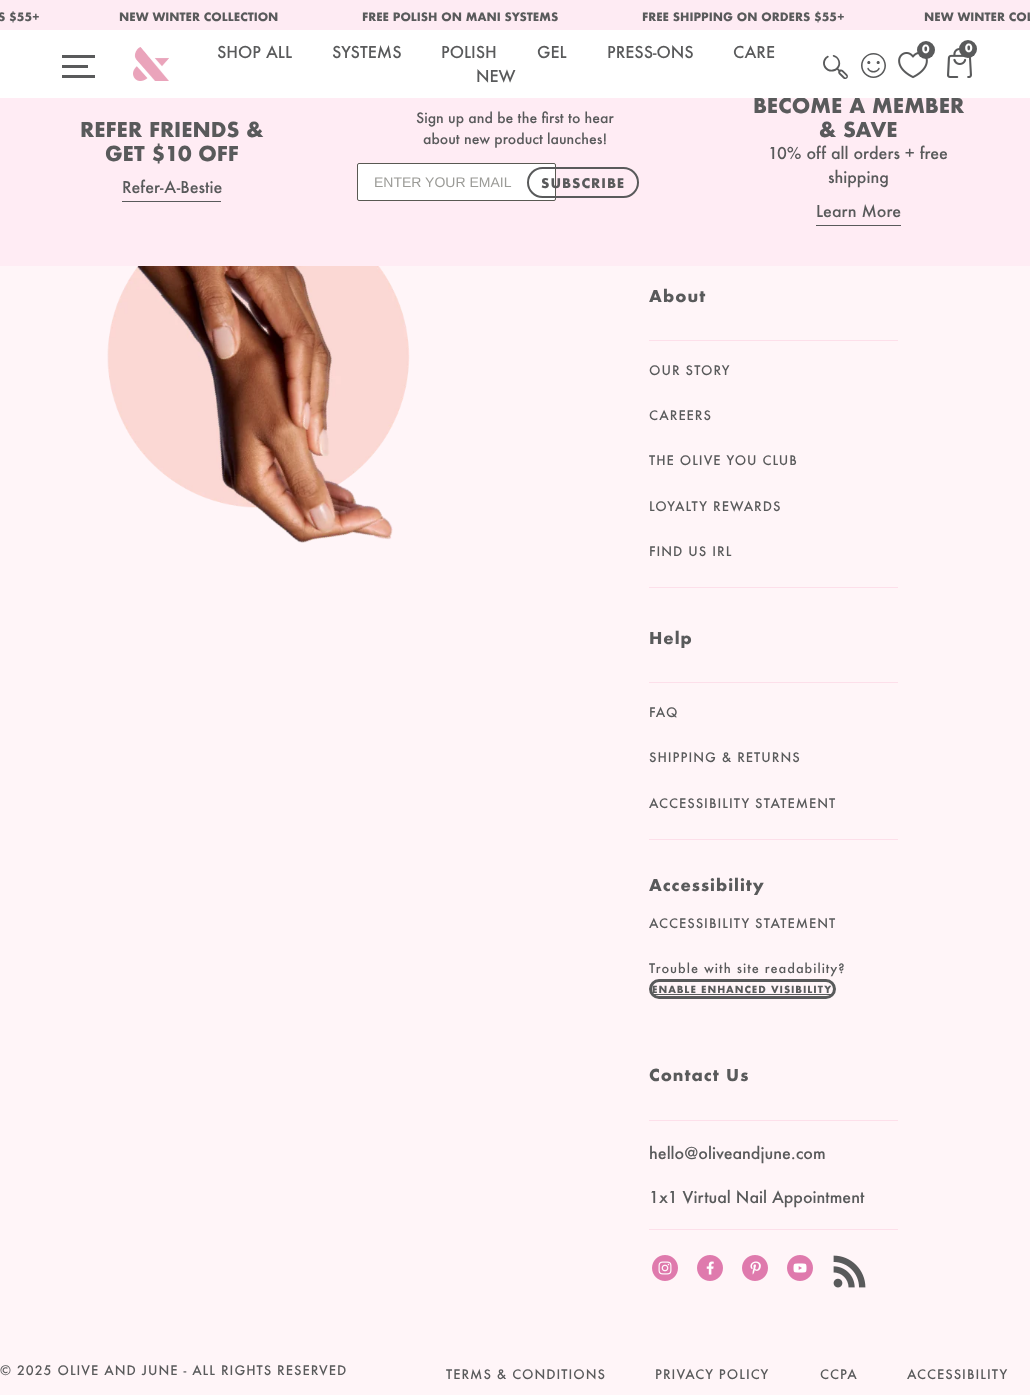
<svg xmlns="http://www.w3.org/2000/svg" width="1030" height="1395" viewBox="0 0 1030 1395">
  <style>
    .t1 { font: bold 11.25px Futura; fill: #595a5b; }
    .t2 { font: bold 20px Futura; fill: #595a5b; }
    .t3 { font: 500 16px Futura; fill: #595a5b; }
    .t4 { font: bold 11px Futura; fill: #fff; }
    .t5 { font: bold 11px Futura; letter-spacing: -1px; fill: #fff; }
    .t6 { font: 500 14px Futura; fill: #595a5b; }
    .t7 { font: 14px Liberation Sans; fill: #9b9b97; }
    .t8 { font: bold 13px Futura; letter-spacing: 1px; fill: #595a5b; }
    .t9 { font: bold 16px Futura; letter-spacing: 1px; fill: #595a5b; }
    .t10 { font: 500 12.8px Futura; letter-spacing: 1px; fill: #595a5b; }
    .t11 { font: bold 9.6px Futura; letter-spacing: 0.95px; fill: #595a5b; }
  </style>
  <rect width="100%" height="100%" fill="#fff5f8"/>
  <rect x="0" y="0" width="1030" height="30" fill="#feebf3"/>
  <text x="-2" y="21" class="t1">S $55+</text>
  <text x="119" y="21" class="t1">NEW WINTER COLLECTION</text>
  <text x="362" y="21" class="t1">FREE POLISH ON MANI SYSTEMS</text>
  <text x="642" y="21" class="t1">FREE SHIPPING ON ORDERS $55+</text>
  <text x="924" y="21" class="t1">NEW WINTER COL</text>
  <rect x="0" y="98" width="1030" height="168" fill="#ffecf4"/>
  <text x="753" y="113" class="t2">BECOME A MEMBER</text>
  <rect x="0" y="30" width="1030" height="68" fill="#fff"/>
  <rect x="62" y="55" width="33" height="3" fill="#595a5b"/>
  <rect x="62" y="65" width="26" height="3" fill="#595a5b"/>
  <rect x="62" y="75" width="33" height="3" fill="#595a5b"/>
  <image x="133" y="47" width="36" height="34" href="images/1.png"/>
  <text x="217" y="58" class="t3">SHOP ALL</text>
  <text x="332" y="58" class="t3">SYSTEMS</text>
  <text x="441" y="58" class="t3">POLISH</text>
  <text x="537" y="58" class="t3">GEL</text>
  <text x="607" y="58" class="t3">PRESS-ONS</text>
  <text x="733" y="58" class="t3">CARE</text>
  <text x="476" y="82" class="t3">NEW</text>
  <image x="898" y="52" width="30" height="27" href="images/2.png"/>
  <circle cx="926" cy="50" r="9" fill="#595a5b"/>
  <text x="922" y="53" class="t4">0</text>
  <image x="947" y="48" width="25" height="30" href="images/3.png"/>
  <circle cx="968" cy="49" r="9" fill="#595a5b"/>
  <text x="965" y="52" class="t5">0</text>
  <image x="823" y="55" width="25" height="24" href="images/4.png"/>
  <image x="861" y="53" width="25" height="25" href="images/5.png"/>
  <text x="80" y="137" class="t2">REFER FRIENDS &amp;</text>
  <text x="105" y="161" class="t2">GET $10 OFF</text>
  <rect x="122" y="201" width="99" height="1" fill="#595a5b"/>
  <text x="122" y="193" class="t3">Refer-A-Bestie</text>
  <text x="416" y="123" class="t6">Sign up and be the first to hear</text>
  <text x="423" y="144" class="t6">about new product launches!</text>
  <rect x="357.5" y="163.5" width="198" height="37" rx="1.5" fill="#fff" stroke="#595952"/>
  <text x="374" y="187" class="t7">ENTER YOUR EMAIL</text>
  <rect x="528" y="168" width="110" height="29" rx="14.5" fill="none" stroke="#595a5b" stroke-width="2"/>
  <text x="541" y="188" class="t8">SUBSCRIBE</text>
  <text x="819" y="137" class="t2">&amp; SAVE</text>
  <text x="768" y="159" class="t3">10% off all orders + free</text>
  <text x="828" y="183" class="t3">shipping</text>
  <rect x="816" y="225" width="85" height="1" fill="#595a5b"/>
  <text x="816" y="217" class="t3">Learn More</text>
  <image x="107" y="266" width="303" height="277" href="images/6.png"/>
  <text x="649" y="302" class="t9">About</text>
  <rect x="649" y="340" width="249" height="1" fill="#fddfea"/>
  <rect x="649" y="587" width="249" height="1" fill="#fddfea"/>
  <text x="649" y="375" class="t10">OUR STORY</text>
  <text x="649" y="420" class="t10">CAREERS</text>
  <text x="649" y="465" class="t10">THE OLIVE YOU CLUB</text>
  <text x="649" y="511" class="t10">LOYALTY REWARDS</text>
  <text x="649" y="556" class="t10">FIND US IRL</text>
  <text x="649" y="644" class="t9">Help</text>
  <rect x="649" y="682" width="249" height="1" fill="#fddfea"/>
  <rect x="649" y="839" width="249" height="1" fill="#fddfea"/>
  <text x="649" y="717" class="t10">FAQ</text>
  <text x="649" y="762" class="t10">SHIPPING &amp; RETURNS</text>
  <text x="649" y="808" class="t10">ACCESSIBILITY STATEMENT</text>
  <text x="649" y="891" class="t9">Accessibility</text>
  <text x="649" y="928" class="t10">ACCESSIBILITY STATEMENT</text>
  <text x="649" y="973" class="t10">Trouble with site readability?</text>
  <rect x="650.5" y="980.5" width="184" height="17" rx="8.5" fill="none" stroke="#595a5b" stroke-width="3"/>
  <text x="652" y="993" class="t11">ENABLE ENHANCED VISIBILITY</text>
  <rect x="652" y="994" width="181" height="1" fill="#595a5b"/>
  <text x="649" y="1081" class="t9">Contact Us</text>
  <rect x="649" y="1120" width="249" height="1" fill="#fddfea"/>
  <rect x="649" y="1229" width="249" height="1" fill="#fddfea"/>
  <text x="649" y="1159" class="t3">hello@oliveandjune.com</text>
  <text x="649" y="1203" class="t3">1x1 Virtual Nail Appointment</text>
  <image x="652" y="1255" width="26" height="26" href="images/7.png"/>
  <image x="697" y="1255" width="26" height="26" href="images/8.png"/>
  <image x="742" y="1255" width="26" height="26" href="images/9.png"/>
  <image x="787" y="1255" width="26" height="26" href="images/10.png"/>
  <image x="833" y="1255" width="33" height="33" href="images/11.png"/>
  <text x="0" y="1375" class="t10">© 2025 OLIVE AND JUNE - ALL RIGHTS RESERVED</text>
  <text x="446" y="1379" class="t10">TERMS &amp; CONDITIONS</text>
  <text x="655" y="1379" class="t10">PRIVACY POLICY</text>
  <text x="820" y="1379" class="t10">CCPA</text>
  <text x="907" y="1379" class="t10">ACCESSIBILITY</text>
</svg>
